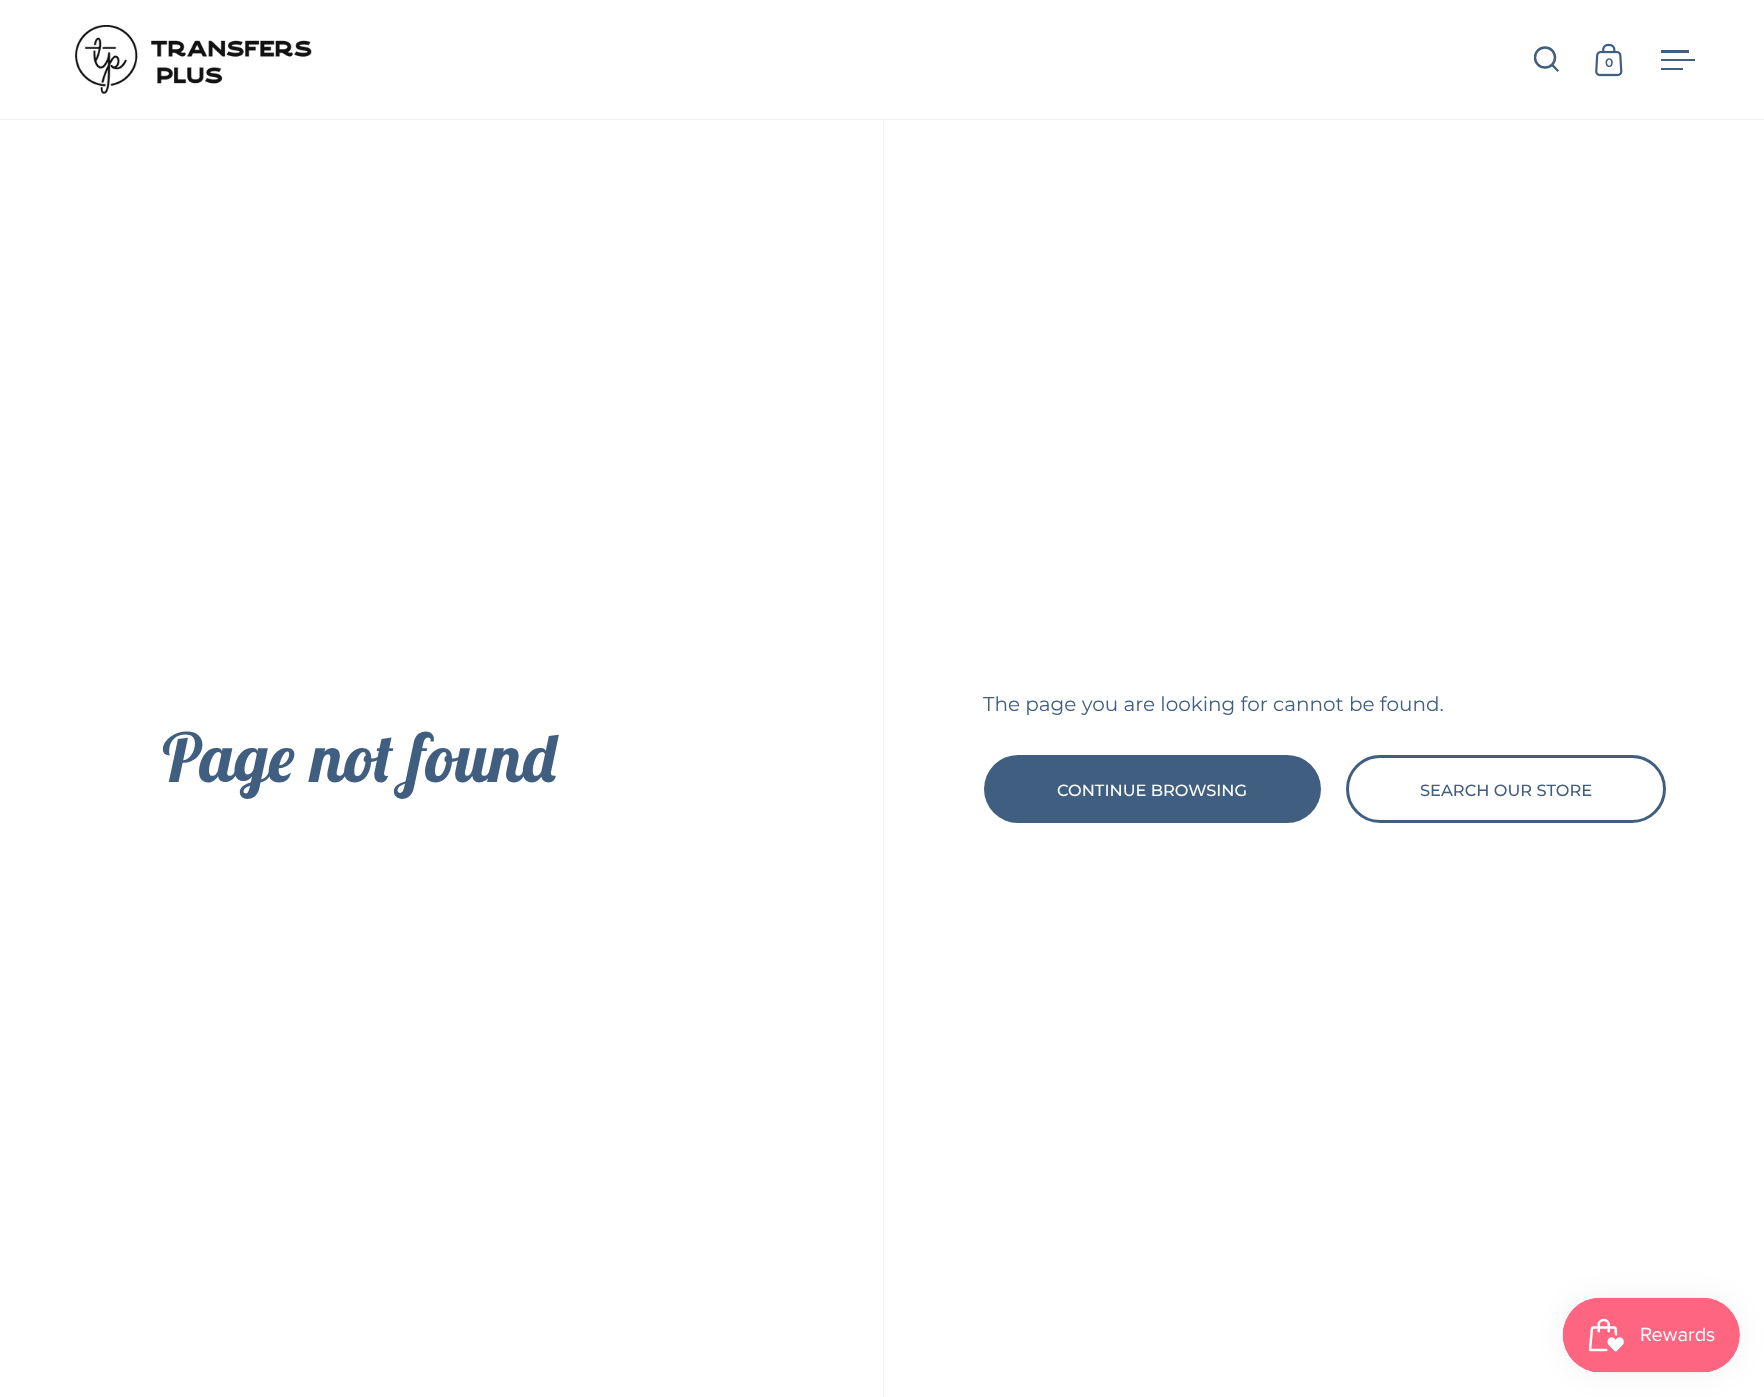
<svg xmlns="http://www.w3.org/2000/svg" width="1764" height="1397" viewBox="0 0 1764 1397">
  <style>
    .t1 { font: bold 12px Montserrat; fill: #405e80; }
    .t2 { font: italic bold 67.5px Lobster Two; fill: #405e80; }
    .t3 { font: 20px Montserrat; fill: #405e80; }
    .t4 { font: 500 16.25px Montserrat; fill: #fff; }
    .t5 { font: 500 16.25px Montserrat; fill: #405e80; }
  </style>
  <defs>
    <clipPath id="clip1"><rect x="1534" y="46" width="26" height="27"/></clipPath>
  </defs>
  <rect width="100%" height="100%" fill="#fff"/>
  <rect x="0" y="119" width="1764" height="1" fill="#f0f2f5"/>
  <image x="75" y="25" width="237" height="69" href="images/1.png"/>
  <g clip-path="url(#clip1)">
    <circle cx="1545" cy="57.5" r="10" fill="none" stroke="#405e80" stroke-width="2.5"/>
  </g>
  <path d="M1551.5 66L1553.5 64.5L1559 70.5L1557.5 72Z" fill="#405e80"/>
  <image x="1595" y="43" width="28" height="34" href="images/2.png"/>
  <text x="1605" y="67" class="t1">0</text>
  <rect x="1661" y="50" width="28" height="3" fill="#405e80"/>
  <rect x="1661" y="59" width="34" height="2" fill="#405e80"/>
  <rect x="1661" y="68" width="22" height="2" fill="#405e80"/>
  <text x="159" y="782" class="t2">Page not found</text>
  <rect x="883" y="120" width="1" height="1277" fill="#f0f2f5"/>
  <text x="983" y="711" class="t3">The page you are looking for cannot be found.</text>
  <rect x="984" y="755" width="337" height="68" rx="34" fill="#405e80"/>
  <text x="1057" y="796" class="t4">CONTINUE BROWSING</text>
  <rect x="1347.5" y="756.5" width="317" height="65" rx="32.5" fill="none" stroke="#405e80" stroke-width="3"/>
  <text x="1420" y="796" class="t5">SEARCH OUR STORE</text>
  <rect x="1563" y="1298" width="177" height="75" rx="37.5" fill="#0000000d" filter="blur(15.5px)"/>
  <image x="1562" y="1297" width="178" height="76" href="images/3.png"/>
</svg>
